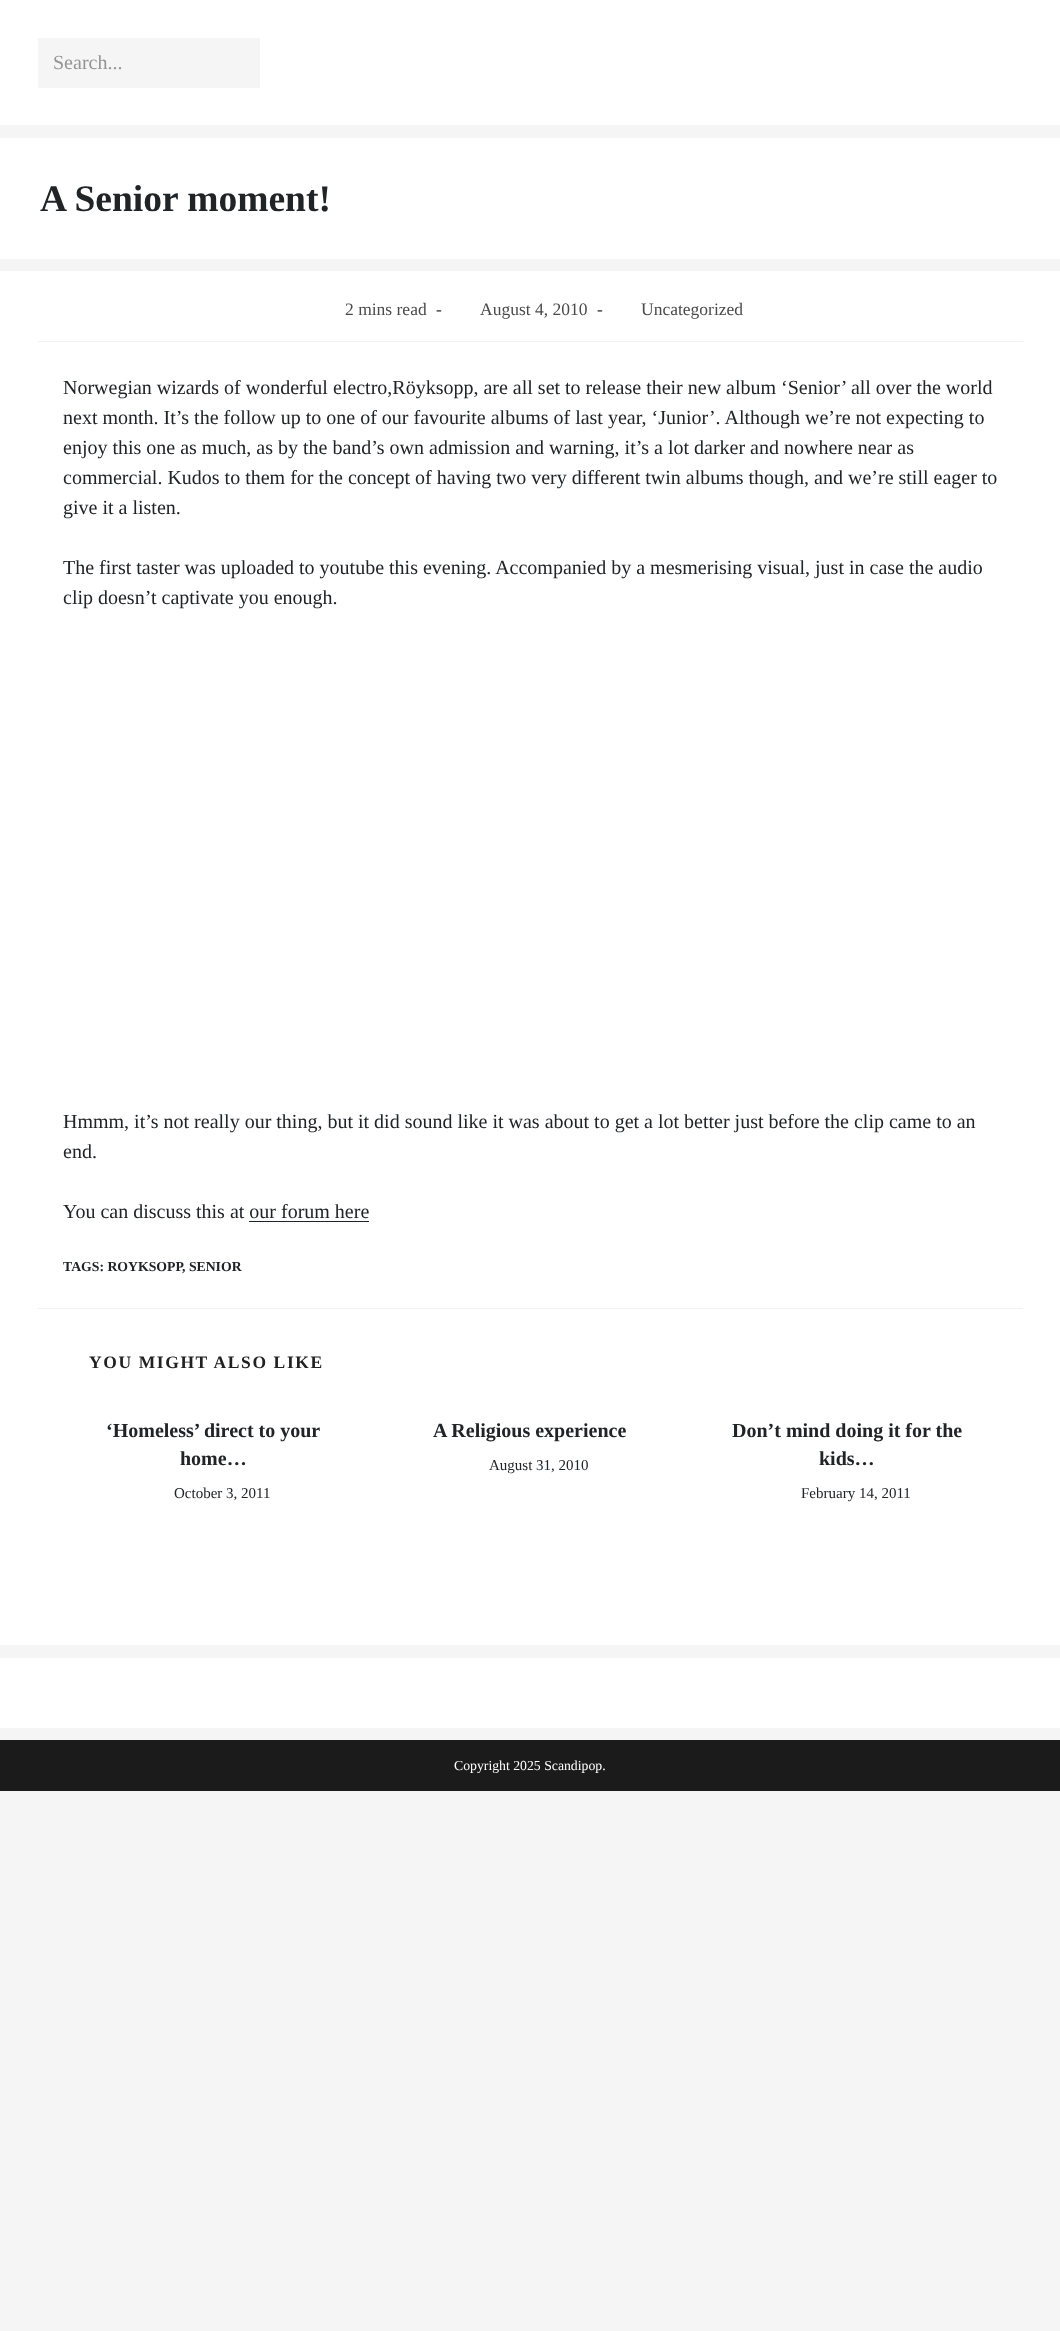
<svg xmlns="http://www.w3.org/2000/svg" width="1060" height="2331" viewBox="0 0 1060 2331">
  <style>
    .t1 { font: 20px Liberation Serif; fill: #949494; }
    .t2 { font: bold 37.5px Liberation Serif; fill: #212427; }
    .t3 { font: 17.5px Liberation Serif; fill: #4a4a4a; }
    .t4 { font: bold 17.5px Liberation Serif; fill: #4a4a4a; }
    .t5 { font: 20px Liberation Serif; fill: #212427; }
    .t6 { font: bold 13.75px Liberation Serif; fill: #212427; }
    .t7 { font: bold 17.5px Liberation Serif; letter-spacing: 1.6px; fill: #212121; }
    .t8 { font: bold 20px Liberation Serif; fill: #212427; }
    .t9 { font: 15px Liberation Serif; fill: #212427; }
    .t10 { font: 13.75px Liberation Serif; fill: #fff; }
  </style>
  <rect width="100%" height="100%" fill="#f5f5f5"/>
  <rect x="0" y="0" width="1060" height="1728" fill="#fff"/>
  <rect x="0" y="125" width="1060" height="13" fill="#f5f5f5"/>
  <rect x="38" y="38" width="222" height="50" fill="#f5f5f5"/>
  <text x="53" y="69" class="t1">Search...</text>
  <rect x="0" y="259" width="1060" height="12" fill="#f5f5f5"/>
  <text x="40" y="211" class="t2">A Senior moment!</text>
  <rect x="38" y="341" width="985" height="1" fill="#f1f1f1"/>
  <text x="345" y="315" class="t3">2 mins read</text>
  <text x="436" y="315" class="t4">-</text>
  <text x="480" y="315" class="t3">August 4, 2010</text>
  <text x="597" y="315" class="t4">-</text>
  <text x="641" y="315" class="t3">Uncategorized</text>
  <text x="63" y="394" class="t5">Norwegian wizards of wonderful electro,Röyksopp, are all set to release their new album ‘Senior’ all over the world</text>
  <text x="63" y="424" class="t5">next month. It’s the follow up to one of our favourite albums of last year, ‘Junior’. Although we’re not expecting to</text>
  <text x="63" y="454" class="t5">enjoy this one as much, as by the band’s own admission and warning, it’s a lot darker and nowhere near as</text>
  <text x="63" y="484" class="t5">commercial. Kudos to them for the concept of having two very different twin albums though, and we’re still eager to</text>
  <text x="63" y="514" class="t5">give it a listen.</text>
  <text x="63" y="574" class="t5">The first taster was uploaded to youtube this evening. Accompanied by a mesmerising visual, just in case the audio</text>
  <text x="63" y="604" class="t5">clip doesn’t captivate you enough.</text>
  <text x="63" y="1128" class="t5">Hmmm, it’s not really our thing, but it did sound like it was about to get a lot better just before the clip came to an</text>
  <text x="63" y="1158" class="t5">end.</text>
  <text x="63" y="1218" class="t5">You can discuss this at our forum here</text>
  <rect x="249" y="1221" width="120" height="1" fill="#212427"/>
  <text x="63" y="1271" class="t6">TAGS: ROYKSOPP</text>
  <text x="182" y="1271" class="t6">, SENIOR</text>
  <rect x="38" y="1308" width="985" height="1" fill="#f1f1f1"/>
  <text x="89" y="1368" class="t7">YOU MIGHT ALSO LIKE</text>
  <text x="106" y="1437" class="t8">‘Homeless’ direct to your</text>
  <text x="180" y="1465" class="t8">home…</text>
  <text x="174" y="1498" class="t9">October 3, 2011</text>
  <text x="433" y="1437" class="t8">A Religious experience</text>
  <text x="489" y="1470" class="t9">August 31, 2010</text>
  <text x="732" y="1437" class="t8">Don’t mind doing it for the</text>
  <text x="819" y="1465" class="t8">kids…</text>
  <text x="801" y="1498" class="t9">February 14, 2011</text>
  <rect x="0" y="1645" width="1060" height="13" fill="#f5f5f5"/>
  <rect x="0" y="1740" width="1060" height="51" fill="#1b1b1b"/>
  <text x="454" y="1770" class="t10">Copyright 2025 Scandipop.</text>
</svg>
